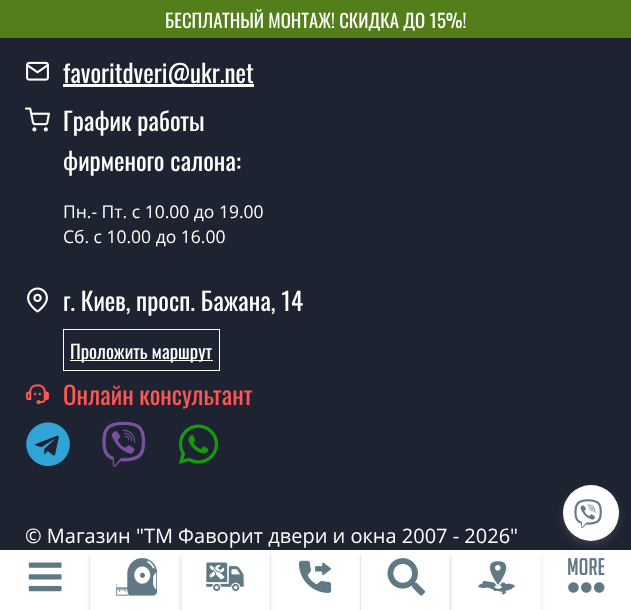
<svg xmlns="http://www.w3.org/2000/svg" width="631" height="610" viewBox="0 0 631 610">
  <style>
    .t1 { font: 18.75px Oswald; fill: #fff; }
    .t2 { font: 25px Oswald; fill: #fff; }
    .t3 { font: 17.5px Open Sans; fill: #fff; }
    .t4 { font: 25px Oswald; fill: #f55; }
    .t5 { font: 20px Open Sans; fill: #fff; }
  </style>
  <defs>
    <clipPath id="clip1"><rect x="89" y="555" width="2" height="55"/></clipPath>
    <clipPath id="clip2"><path d="M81 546H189V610H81ZM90 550H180V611H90Z" clip-rule="evenodd"/></clipPath>
    <clipPath id="clip3"><path d="M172 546H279V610H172ZM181 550H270V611H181Z" clip-rule="evenodd"/></clipPath>
    <clipPath id="clip4"><path d="M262 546H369V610H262ZM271 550H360V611H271Z" clip-rule="evenodd"/></clipPath>
    <clipPath id="clip5"><path d="M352 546H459V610H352ZM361 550H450V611H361Z" clip-rule="evenodd"/></clipPath>
    <clipPath id="clip6"><path d="M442 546H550V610H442ZM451 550H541V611H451Z" clip-rule="evenodd"/></clipPath>
  </defs>
  <rect width="100%" height="100%" fill="#1d2331"/>
  <rect x="0" y="0" width="631" height="38" fill="#547e1a"/>
  <text x="165" y="28" class="t1">БЕСПЛАТНЫЙ МОНТАЖ! СКИДКА ДО 15%!</text>
  <rect x="563" y="489" width="56" height="56" rx="28" fill="#a3a3a333" filter="blur(4px)"/>
  <rect x="0" y="550" width="631" height="60" fill="#fff"/>
  <g clip-path="url(#clip1)">
    <rect x="0" y="555" width="89" height="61" fill="#0000001a" filter="blur(2.5px)"/>
  </g>
  <image x="28" y="562" width="34" height="30" href="images/1.png"/>
  <g clip-path="url(#clip2)">
    <rect x="90" y="555" width="90" height="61" fill="#0000001a" filter="blur(2.5px)"/>
  </g>
  <image x="116" y="558" width="42" height="38" href="images/2.png"/>
  <g clip-path="url(#clip3)">
    <rect x="181" y="555" width="89" height="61" fill="#0000001a" filter="blur(2.5px)"/>
  </g>
  <image x="206" y="562" width="38" height="29" href="images/3.png"/>
  <g clip-path="url(#clip4)">
    <rect x="271" y="555" width="89" height="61" fill="#0000001a" filter="blur(2.5px)"/>
  </g>
  <image x="298" y="560" width="34" height="33" href="images/4.png"/>
  <g clip-path="url(#clip5)">
    <rect x="361" y="555" width="89" height="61" fill="#0000001a" filter="blur(2.5px)"/>
  </g>
  <image x="387" y="558" width="38" height="38" href="images/5.png"/>
  <g clip-path="url(#clip6)">
    <rect x="451" y="555" width="90" height="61" fill="#0000001a" filter="blur(2.5px)"/>
  </g>
  <image x="478" y="560" width="37" height="35" href="images/6.png"/>
  <image x="568" y="558" width="37" height="35" href="images/7.png"/>
  <image x="26" y="61" width="23" height="20" href="images/8.png"/>
  <rect x="63" y="84" width="191" height="3" fill="#fff"/>
  <text x="63" y="83" class="t2">favoritdveri@ukr.net</text>
  <image x="25" y="107" width="25" height="25" href="images/9.png"/>
  <text x="63" y="131" class="t2">График работы</text>
  <text x="63" y="171" class="t2">фирменого салона:</text>
  <text x="63" y="218" class="t3">Пн.- Пт. с 10.00 до 19.00</text>
  <text x="63" y="243" class="t3">Сб. с 10.00 до 16.00</text>
  <image x="27" y="287" width="21" height="26" href="images/10.png"/>
  <text x="63" y="311" class="t2">г. Киев, просп. Бажана, 14</text>
  <rect x="63.5" y="329.5" width="156" height="41" fill="none" stroke="#fff"/>
  <rect x="70" y="360" width="143" height="1" fill="#fff"/>
  <text x="70" y="359" class="t1">Проложить маршрут</text>
  <image x="26" y="384" width="23" height="21" href="images/11.png"/>
  <text x="63" y="405" class="t4">Онлайн консультант</text>
  <image x="26" y="422" width="44" height="44" href="images/12.png"/>
  <image x="102" y="421" width="44" height="46" href="images/13.png"/>
  <image x="178" y="424" width="41" height="40" href="images/14.png"/>
  <text x="25" y="543" class="t5">© Магазин "ТМ Фаворит двери и окна 2007 - 2026"</text>
  <circle cx="591" cy="513" r="28" fill="#fff"/>
  <image x="574" y="499" width="28" height="29" href="images/15.png"/>
</svg>
